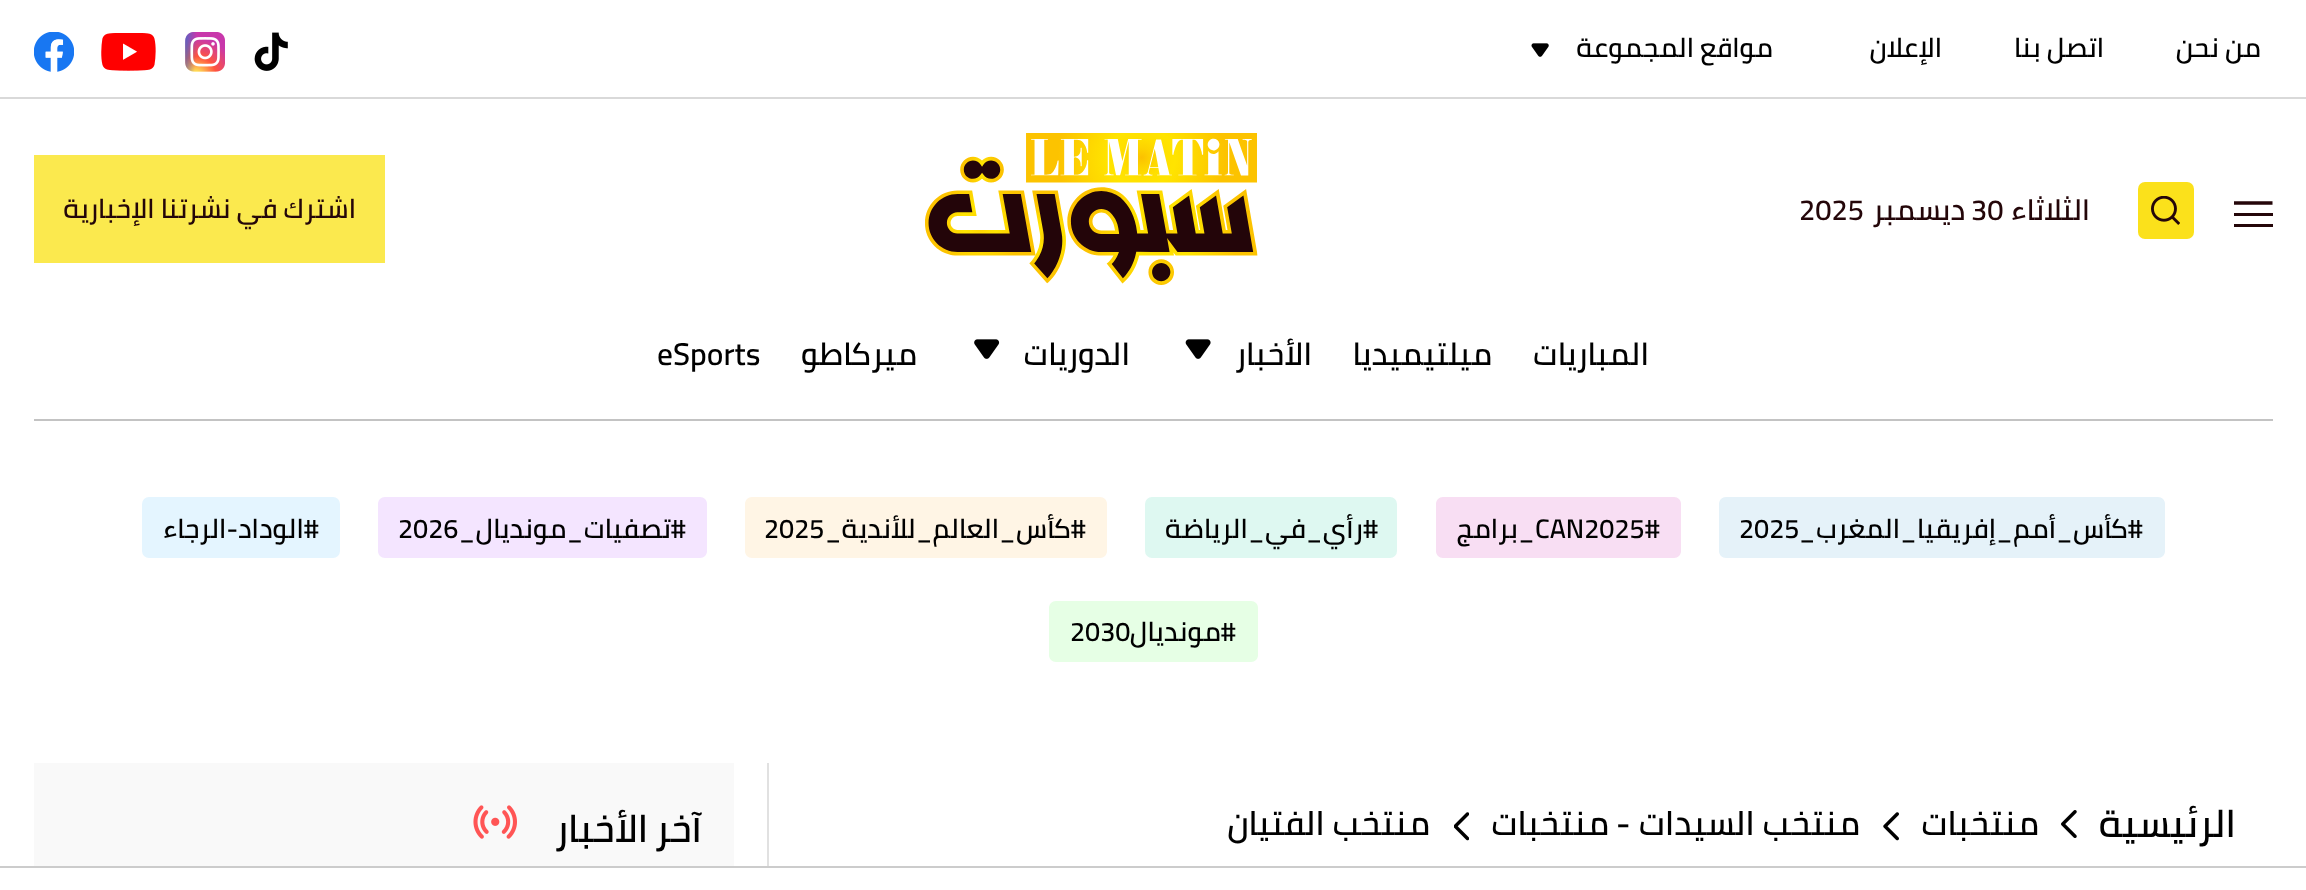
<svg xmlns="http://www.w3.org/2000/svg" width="2306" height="890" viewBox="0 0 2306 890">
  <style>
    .t1 { font: 600 27px Cairo; direction: rtl; fill: #000; }
    .t2 { font: 600 29px Cairo; direction: rtl; fill: #240609; }
    .t3 { font: 600 29px Cairo; fill: #240609; }
    .t4 { font: 600 27px Cairo; direction: rtl; fill: #240609; }
    .t5 { font: 600 31.5px Cairo; direction: rtl; fill: #000; }
    .t6 { font: 600 31.5px Cairo; fill: #000; }
    .t7 { font: 600 27px Cairo; fill: #000; }
    .t8 { font: 600 38.25px Cairo; direction: rtl; fill: #000; }
    .t9 { font: 600 33.75px Cairo; direction: rtl; fill: #000; }
    .t10 { font: 600 33.75px Cairo; fill: #000; }
    .t11 { font: 600 38.25px Cairo; letter-spacing: 1.5px; direction: rtl; fill: #000; }
  </style>
  <rect width="100%" height="100%" fill="#fff"/>
  <rect x="0" y="97" width="2306" height="2" fill="#d9d9d9"/>
  <text x="2261" y="57" class="t1">من نحن</text>
  <text x="2104" y="57" class="t1">اتصل بنا</text>
  <text x="1942" y="57" class="t1">الإعلان</text>
  <text x="1773" y="57" class="t1">مواقع المجموعة</text>
  <image x="1531" y="43" width="18" height="14" href="images/1.png"/>
  <image x="254" y="32" width="34" height="39" href="images/2.png"/>
  <image x="185" y="32" width="40" height="40" href="images/3.png"/>
  <image x="101" y="33" width="55" height="38" href="images/4.png"/>
  <image x="34" y="32" width="40" height="40" href="images/5.png"/>
  <path d="M2234 203H2272.5" fill="none" stroke="#240609" stroke-width="3.4"/>
  <rect x="2234" y="213" width="39" height="3" fill="#240609"/>
  <rect x="2234" y="224" width="39" height="3" fill="#240609"/>
  <rect x="2138" y="182" width="56" height="57" rx="7" fill="#fbe11b"/>
  <image x="2151" y="196" width="29" height="29" href="images/6.png"/>
  <text x="2090" y="220" class="t2">الثلاثاء</text>
  <text x="1971" y="220" class="t3">30</text>
  <text x="1965" y="220" class="t2">ديسمبر</text>
  <text x="1799" y="220" class="t3">2025</text>
  <image x="925" y="133" width="333" height="152" href="images/7.png"/>
  <rect x="34" y="155" width="351" height="108" fill="#fbe94e"/>
  <text x="356" y="218" class="t4">اشترك في نشرتنا الإخبارية</text>
  <rect x="34" y="419" width="2239" height="2" fill="#c3c3c3"/>
  <text x="1649" y="365" class="t5">المباريات</text>
  <text x="1492" y="365" class="t5">ميلتيميديا</text>
  <text x="1312" y="365" class="t5">الأخبار</text>
  <image x="1185" y="339" width="26" height="20" href="images/8.png"/>
  <text x="1130" y="365" class="t5">الدوريات</text>
  <image x="974" y="339" width="26" height="20" href="images/9.png"/>
  <text x="917" y="365" class="t5">ميركاطو</text>
  <text x="657" y="365" class="t6">eSports</text>
  <path d="M1800 497H2158C2162 497 2165 500 2165 504V551C2165 555 2162 558 2158 558H1800Z" fill="#e5f2f9"/>
  <text x="2143" y="538" class="t1">#كأس_أمم_إفريقيا_المغرب_</text>
  <path d="M1726 497H1800V558H1726C1722 558 1719 555 1719 551V504C1719 500 1722 497 1726 497Z" fill="#e5f2f9"/>
  <text x="1739" y="538" class="t7">2025</text>
  <rect x="1535" y="497" width="110" height="61" fill="#f8def3"/>
  <path d="M1645 497H1674C1678 497 1681 500 1681 504V551C1681 555 1678 558 1674 558H1645Z" fill="#f8def3"/>
  <text x="1535" y="538" class="t7">CAN2025#</text>
  <path d="M1443 497H1535V558H1443C1439 558 1436 555 1436 551V504C1436 500 1439 497 1443 497Z" fill="#f8def3"/>
  <text x="1535" y="538" class="t1">_برامج</text>
  <rect x="1145" y="497" width="252" height="61" rx="7" fill="#def8f1"/>
  <text x="1378" y="538" class="t1">#رأي_في_الرياضة</text>
  <path d="M826 497H1100C1104 497 1107 500 1107 504V551C1107 555 1104 558 1100 558H826Z" fill="#fff5e5"/>
  <text x="1086" y="538" class="t1">#كأس_العالم_للأندية_</text>
  <path d="M752 497H826V558H752C748 558 745 555 745 551V504C745 500 748 497 752 497Z" fill="#fff5e5"/>
  <text x="764" y="538" class="t7">2025</text>
  <path d="M459 497H700C704 497 707 500 707 504V551C707 555 704 558 700 558H459Z" fill="#f4e5ff"/>
  <text x="686" y="538" class="t1">#تصفيات_مونديال_</text>
  <path d="M385 497H459V558H385C381 558 378 555 378 551V504C378 500 381 497 385 497Z" fill="#f4e5ff"/>
  <text x="398" y="538" class="t7">2026</text>
  <rect x="142" y="497" width="198" height="61" rx="7" fill="#e4f5ff"/>
  <text x="319" y="538" class="t1">#الوداد-الرجاء</text>
  <path d="M1130 601H1251C1255 601 1258 604 1258 608V655C1258 659 1255 662 1251 662H1130Z" fill="#e6ffe5"/>
  <text x="1236" y="641" class="t1">#مونديال</text>
  <path d="M1056 601H1130V662H1056C1052 662 1049 659 1049 655V608C1049 604 1052 601 1056 601Z" fill="#e6ffe5"/>
  <text x="1070" y="641" class="t7">2030</text>
  <text x="2236" y="837" class="t8">الرئيسية</text>
  <image x="2061" y="810" width="16" height="28" href="images/10.png"/>
  <text x="2039" y="835" class="t9">منتخبات</text>
  <image x="1883" y="812" width="16" height="29" href="images/11.png"/>
  <text x="1860" y="835" class="t9">منتخب السيدات</text>
  <text x="1616" y="835" class="t10">-</text>
  <text x="1609" y="835" class="t9">منتخبات</text>
  <image x="1454" y="812" width="15" height="29" href="images/12.png"/>
  <text x="1430" y="835" class="t9">منتخب الفتيان</text>
  <rect x="767" y="763" width="2" height="103" fill="#e1e1e1"/>
  <rect x="34" y="763" width="700" height="103" fill="#f9f9f9"/>
  <text x="702" y="842" word-spacing="-2" class="t11">آخر الأخبار</text>
  <image x="473" y="805" width="44" height="34" href="images/13.png"/>
  <rect x="0" y="866" width="2306" height="2" fill="#ccc"/>
</svg>
